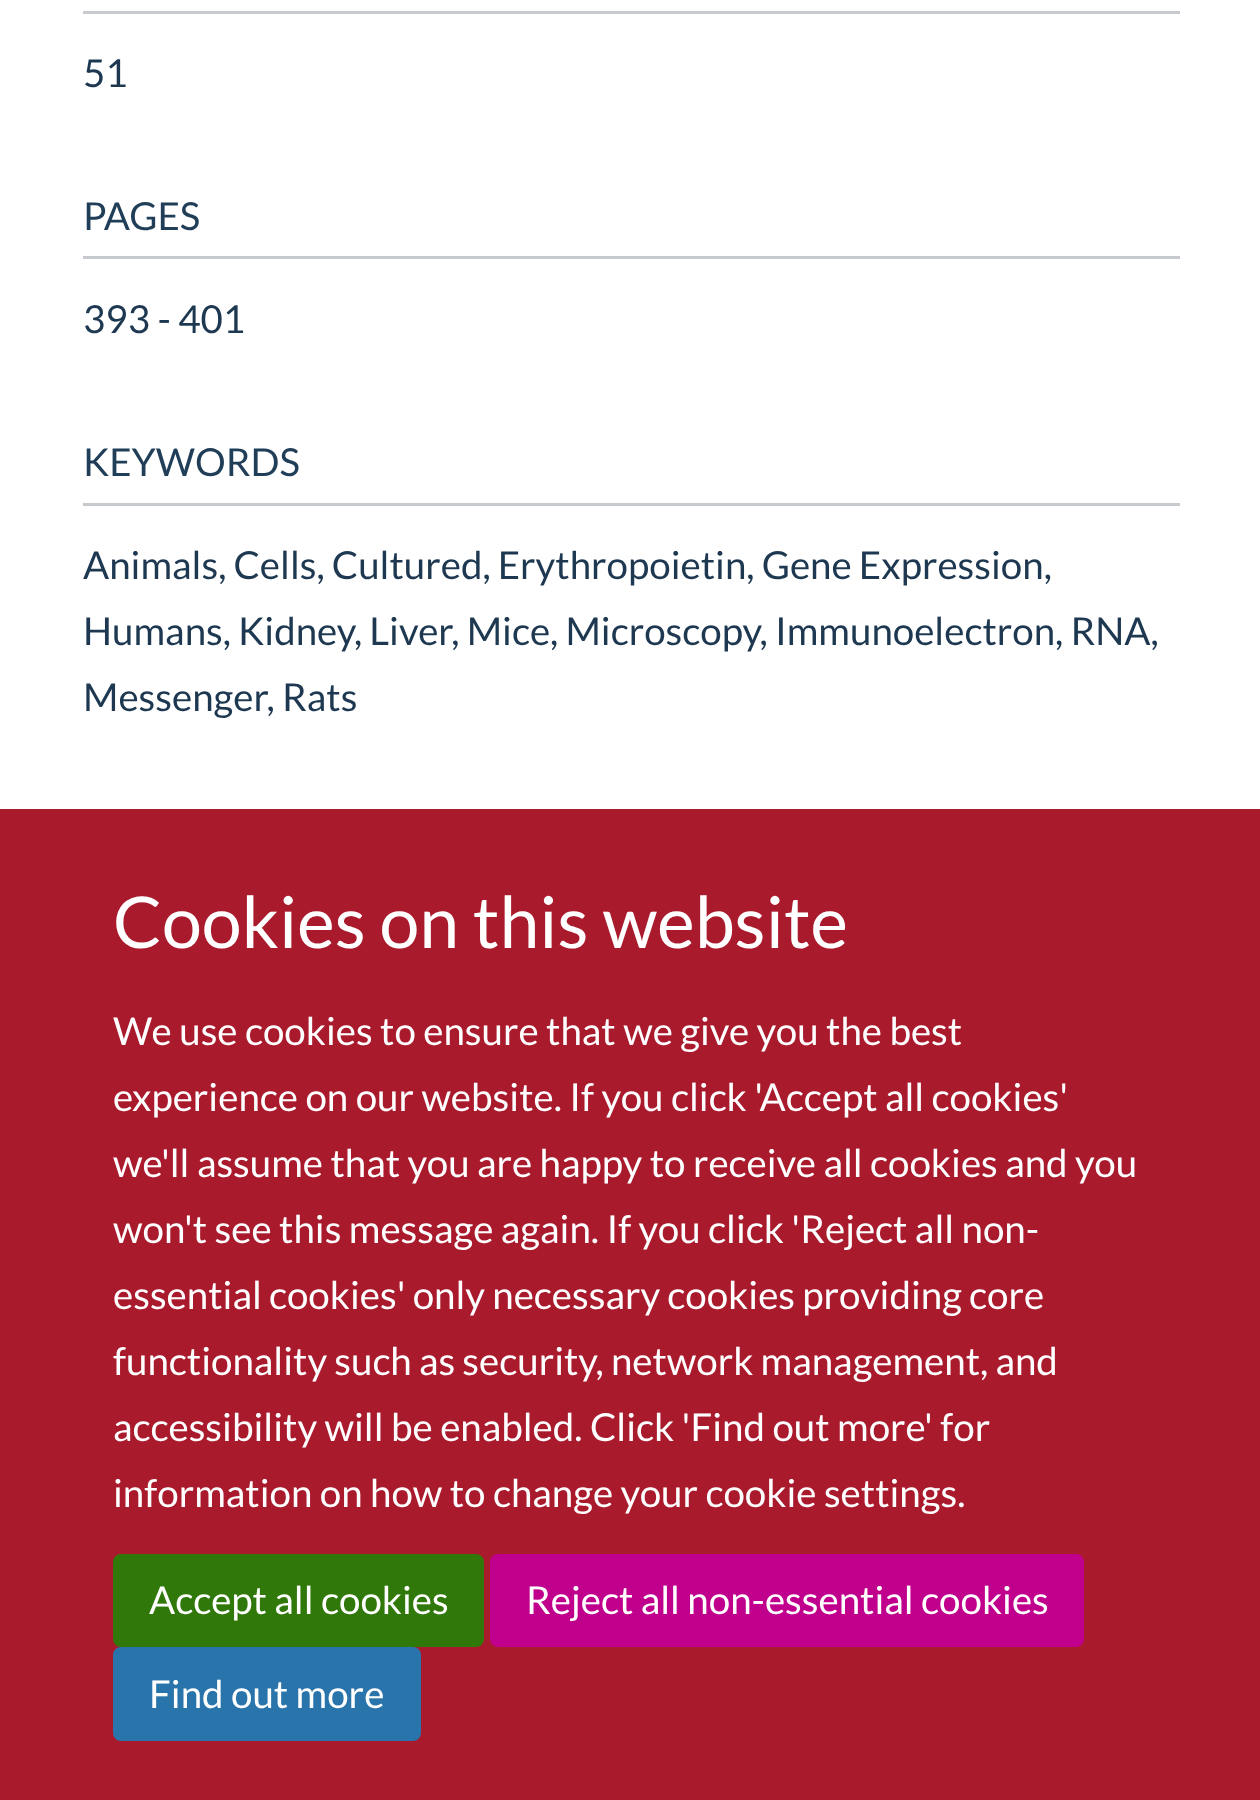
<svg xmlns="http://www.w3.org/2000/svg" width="1260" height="1800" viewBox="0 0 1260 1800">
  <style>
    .t1 { font: 38.5px Lato; fill: #1d3850; }
    .t2 { font: 38.5px Lato; fill: #203e58; }
    .t3 { font: 71.5px Lato; fill: #fff; }
    .t4 { font: 38.5px Lato; fill: #fff; }
  </style>
  <rect width="100%" height="100%" fill="#fff"/>
  <rect x="83" y="11" width="1097" height="3" fill="#c6cacf"/>
  <text x="83" y="87" class="t1">51</text>
  <rect x="83" y="256" width="1097" height="3" fill="#c6cacf"/>
  <text x="83" y="230" class="t2">PAGES</text>
  <text x="83" y="333" class="t1">393 - 401</text>
  <rect x="83" y="503" width="1097" height="3" fill="#c6cacf"/>
  <text x="83" y="476" class="t2">KEYWORDS</text>
  <text x="83" y="579" word-spacing="-0.25" class="t1">Animals, Cells, Cultured, Erythropoietin, Gene Expression,</text>
  <text x="83" y="645" word-spacing="-0.25" class="t1">Humans, Kidney, Liver, Mice, Microscopy, Immunoelectron, RNA,</text>
  <text x="83" y="711" class="t1">Messenger, Rats</text>
  <rect x="0" y="809" width="1260" height="991" fill="#aa1a2d"/>
  <text x="113" y="948" class="t3">Cookies on this website</text>
  <text x="113" y="1045" class="t4">We use cookies to ensure that we give you the best</text>
  <text x="113" y="1111" class="t4">experience on our website. If you click 'Accept all cookies'</text>
  <text x="113" y="1177" class="t4">we'll assume that you are happy to receive all cookies and you</text>
  <text x="113" y="1243" class="t4">won't see this message again. If you click 'Reject all non-</text>
  <text x="113" y="1309" word-spacing="-0.25" class="t4">essential cookies' only necessary cookies providing core</text>
  <text x="113" y="1375" word-spacing="-0.25" class="t4">functionality such as security, network management, and</text>
  <text x="113" y="1441" class="t4">accessibility will be enabled. Click 'Find out more' for</text>
  <text x="113" y="1507" class="t4">information on how to change your cookie settings.</text>
  <rect x="114.5" y="1555.5" width="368" height="90" rx="6.5" fill="#31780a" stroke="#31780a" stroke-width="3"/>
  <text x="149" y="1614" class="t4">Accept all cookies</text>
  <rect x="491.5" y="1555.5" width="591" height="90" rx="6.5" fill="#c0008d" stroke="#c0008d" stroke-width="3"/>
  <text x="526" y="1614" class="t4">Reject all non-essential cookies</text>
  <rect x="114.5" y="1648.5" width="305" height="91" rx="6.5" fill="#2a74ac" stroke="#2a74ac" stroke-width="3"/>
  <text x="149" y="1708" class="t4">Find out more</text>
</svg>
